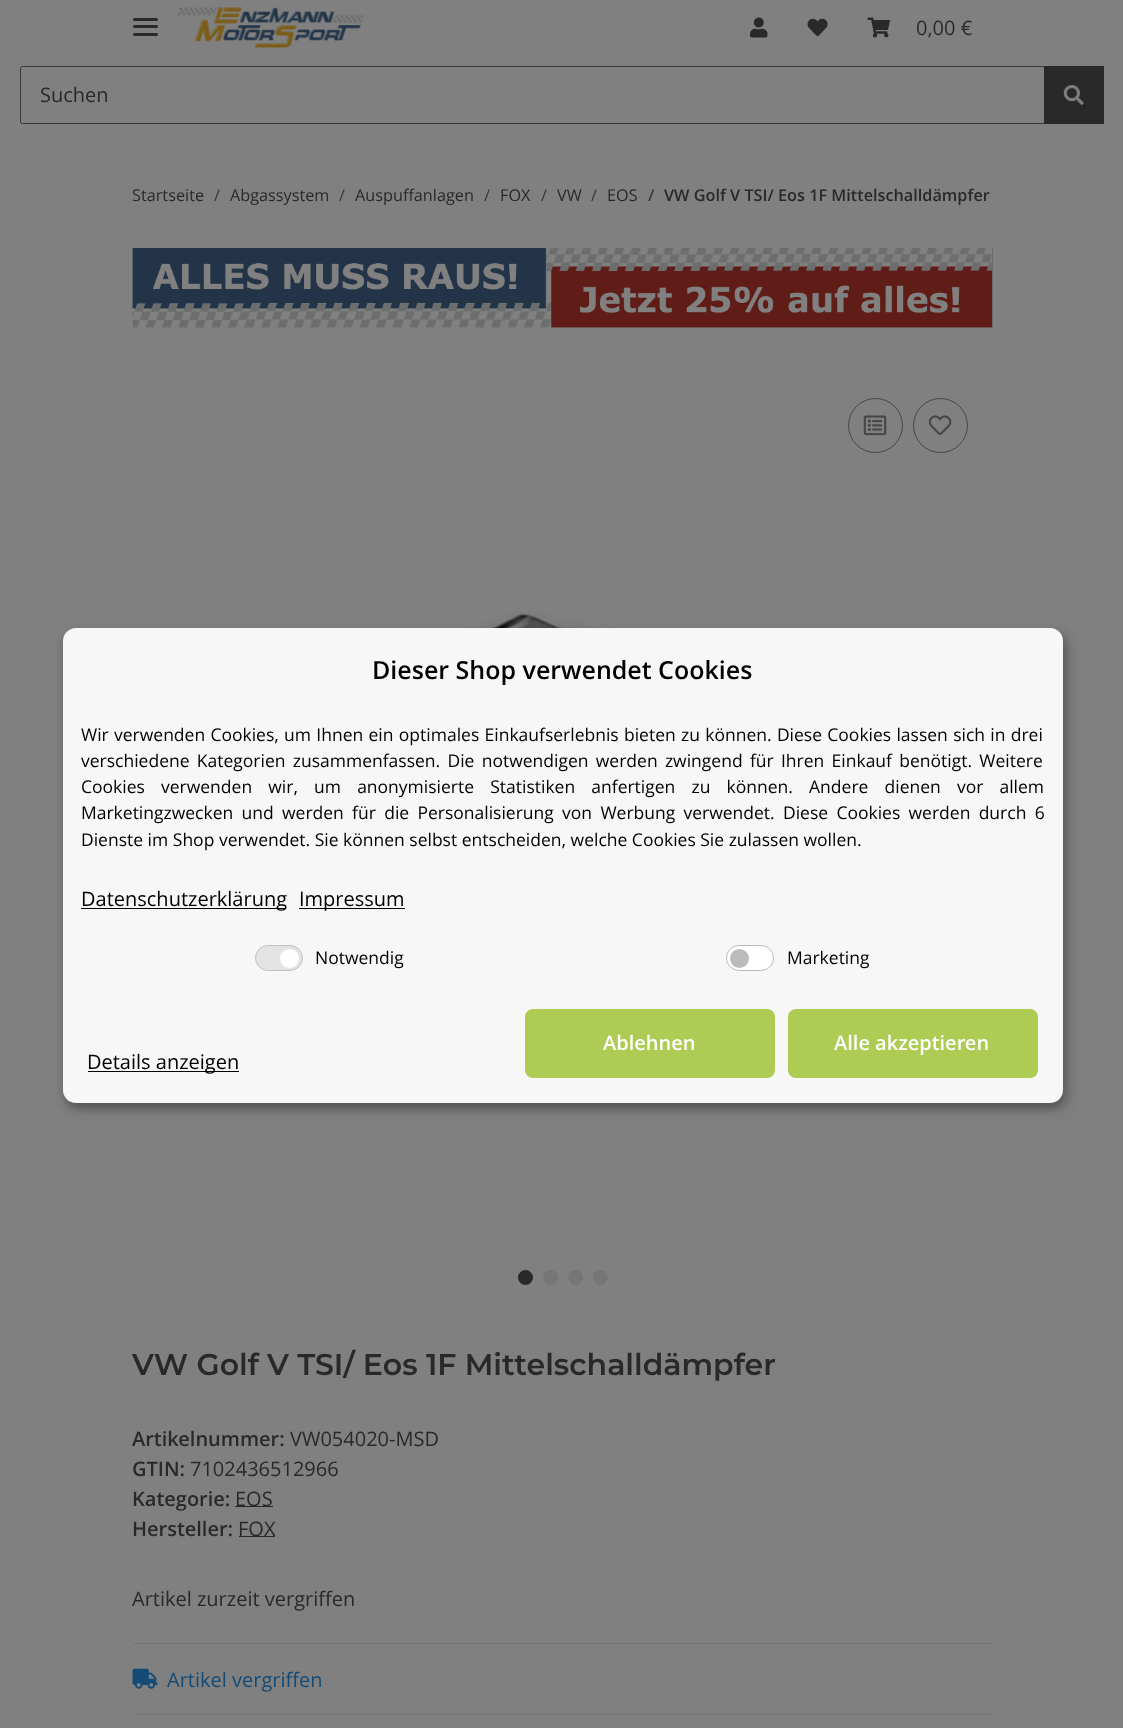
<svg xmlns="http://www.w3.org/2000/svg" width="1123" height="1728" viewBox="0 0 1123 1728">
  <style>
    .t1 { font: 20px Open Sans; fill: #292929; }
    .t2 { font: 16.25px Open Sans; fill: #292929; }
    .t3 { font: 16.25px Open Sans; fill: #383838; }
    .t4 { font: 600 16.25px Open Sans; fill: #383838; }
    .t5 { font: 600 16.25px Open Sans; fill: #292929; }
    .t6 { font: 600 30px Montserrat; fill: #292929; }
    .t7 { font: 600 20px Open Sans; fill: #292929; }
    .t8 { font: 20px Open Sans; fill: #144b76; }
    .t9 { font: 600 25px Open Sans; fill: #000; }
    .t10 { font: 17.5px Open Sans; fill: #000; }
    .t11 { font: 20px Open Sans; fill: #000; }
    .t12 { font: 600 20px Open Sans; fill: #fff; }
  </style>
  <rect width="100%" height="100%" fill="#808080"/>
  <rect x="133" y="25" width="25" height="3" rx="1.5" fill="#292929"/>
  <rect x="133" y="18" width="25" height="3" rx="1.5" fill="#292929"/>
  <rect x="133" y="33" width="25" height="3" rx="1.5" fill="#292929"/>
  <image x="177" y="7" width="187" height="41" href="images/1.png"/>
  <image x="750" y="17" width="18" height="21" href="images/2.png"/>
  <image x="807" y="18" width="21" height="19" href="images/3.png"/>
  <image x="867" y="17" width="23" height="21" href="images/4.png"/>
  <text x="916" y="35" class="t1">0,00 €</text>
  <rect x="20.5" y="66.5" width="1024" height="57" rx="2" fill="none" stroke="#383838"/>
  <text x="40" y="102" class="t1">Suchen</text>
  <rect x="1044" y="66" width="60" height="58" fill="#292929"/>
  <image x="1063" y="85" width="21" height="20" href="images/5.png"/>
  <text x="132" y="201" class="t2">Startseite</text>
  <text x="214" y="201" class="t3">/</text>
  <text x="230" y="201" class="t2">Abgassystem</text>
  <text x="339" y="201" class="t3">/</text>
  <text x="355" y="201" class="t2">Auspuffanlagen</text>
  <text x="484" y="201" class="t3">/</text>
  <text x="500" y="201" class="t2">FOX</text>
  <text x="541" y="201" class="t3">/</text>
  <text x="557" y="201" class="t2">VW</text>
  <text x="591" y="201" class="t3">/</text>
  <text x="607" y="201" class="t2">EOS</text>
  <text x="648" y="201" class="t4">/</text>
  <text x="664" y="201" class="t5">VW Golf V TSI/ Eos 1F Mittelschalldämpfer</text>
  <image x="132" y="248" width="861" height="80" href="images/6.png"/>
  <circle cx="875.5" cy="425.5" r="27" fill="none" stroke="#474747"/>
  <image x="863" y="415" width="24" height="21" href="images/7.png"/>
  <circle cx="940.5" cy="425.5" r="27" fill="none" stroke="#474747"/>
  <image x="928" y="415" width="24" height="21" href="images/8.png"/>
  <image x="245" y="612" width="748" height="16" href="images/9.png"/>
  <circle cx="525.5" cy="1277.5" r="6" fill="#292929" stroke="#292929" stroke-width="3"/>
  <circle cx="550.5" cy="1277.5" r="7.5" fill="#767676"/>
  <circle cx="575.5" cy="1277.5" r="7.5" fill="#767676"/>
  <circle cx="600.5" cy="1277.5" r="7.5" fill="#767676"/>
  <text x="132" y="1375" class="t6">VW Golf V TSI/ Eos 1F Mittelschalldämpfer</text>
  <text x="132" y="1446" class="t7">Artikelnummer:</text>
  <text x="290" y="1446" class="t1">VW054020-MSD</text>
  <text x="132" y="1476" class="t7">GTIN:</text>
  <text x="190" y="1476" class="t1">7102436512966</text>
  <text x="132" y="1506" class="t7">Kategorie:</text>
  <rect x="235" y="1506" width="38" height="1" fill="#292929"/>
  <text x="235" y="1506" class="t1">EOS</text>
  <text x="132" y="1536" class="t7">Hersteller:</text>
  <rect x="239" y="1536" width="36" height="1" fill="#292929"/>
  <text x="238" y="1536" class="t1">FOX</text>
  <text x="132" y="1606" class="t1">Artikel zurzeit vergriffen</text>
  <rect x="133" y="1643" width="860" height="1" fill="#767676"/>
  <rect x="133" y="1714" width="860" height="1" fill="#767676"/>
  <image x="132" y="1668" width="26" height="21" href="images/10.png"/>
  <text x="167" y="1687" class="t8">Artikel vergriffen</text>
  <rect x="69" y="634" width="1000" height="475" rx="13" fill="#00000030" filter="blur(6px)"/>
  <rect x="63" y="633" width="1000" height="475" rx="13" fill="#00000033" filter="blur(4px)"/>
  <rect x="63" y="628" width="1000" height="475" rx="13" fill="#f8f7f7"/>
  <text x="372" y="679" class="t9">Dieser Shop verwendet Cookies</text>
  <text x="81" y="741" word-spacing="0.75" class="t10">Wir verwenden Cookies, um Ihnen ein optimales Einkaufserlebnis bieten zu können. Diese Cookies lassen sich in drei</text>
  <text x="81" y="767" word-spacing="2.75" class="t10">verschiedene Kategorien zusammenfassen. Die notwendigen werden zwingend für Ihren Einkauf benötigt. Weitere</text>
  <text x="81" y="793" word-spacing="11.6" class="t10">Cookies verwenden wir, um anonymisierte Statistiken anfertigen zu können. Andere dienen vor allem</text>
  <text x="81" y="819" word-spacing="3.75" class="t10">Marketingzwecken und werden für die Personalisierung von Werbung verwendet. Diese Cookies werden durch 6</text>
  <text x="81" y="846" class="t10">Dienste im Shop verwendet. Sie können selbst entscheiden, welche Cookies Sie zulassen wollen.</text>
  <rect x="81" y="908" width="205" height="1" fill="#000"/>
  <text x="81" y="906" class="t11">Datenschutzerklärung</text>
  <rect x="299" y="908" width="106" height="1" fill="#000"/>
  <text x="299" y="906" class="t11">Impressum</text>
  <rect x="255.5" y="945.5" width="47" height="25" rx="12.5" fill="#e3e3e3" stroke="#c1c1c1"/>
  <circle cx="289.5" cy="958.5" r="9.5" fill="#fefefe"/>
  <text x="315" y="964" class="t10">Notwendig</text>
  <rect x="726.5" y="945.5" width="47" height="25" rx="12.5" fill="#fff" stroke="#bbb"/>
  <circle cx="739.5" cy="958.5" r="9.5" fill="#bbb"/>
  <text x="787" y="964" class="t10">Marketing</text>
  <rect x="526.5" y="1010.5" width="247" height="66" rx="6.5" fill="#aecc53" stroke="#aecc53" stroke-width="3"/>
  <text x="603" y="1050" class="t12">Ablehnen</text>
  <rect x="789.5" y="1010.5" width="247" height="66" rx="6.5" fill="#aecc53" stroke="#aecc53" stroke-width="3"/>
  <text x="834" y="1050" class="t12">Alle akzeptieren</text>
  <rect x="88" y="1071" width="151" height="1" fill="#000"/>
  <text x="87" y="1069" class="t11">Details anzeigen</text>
</svg>
